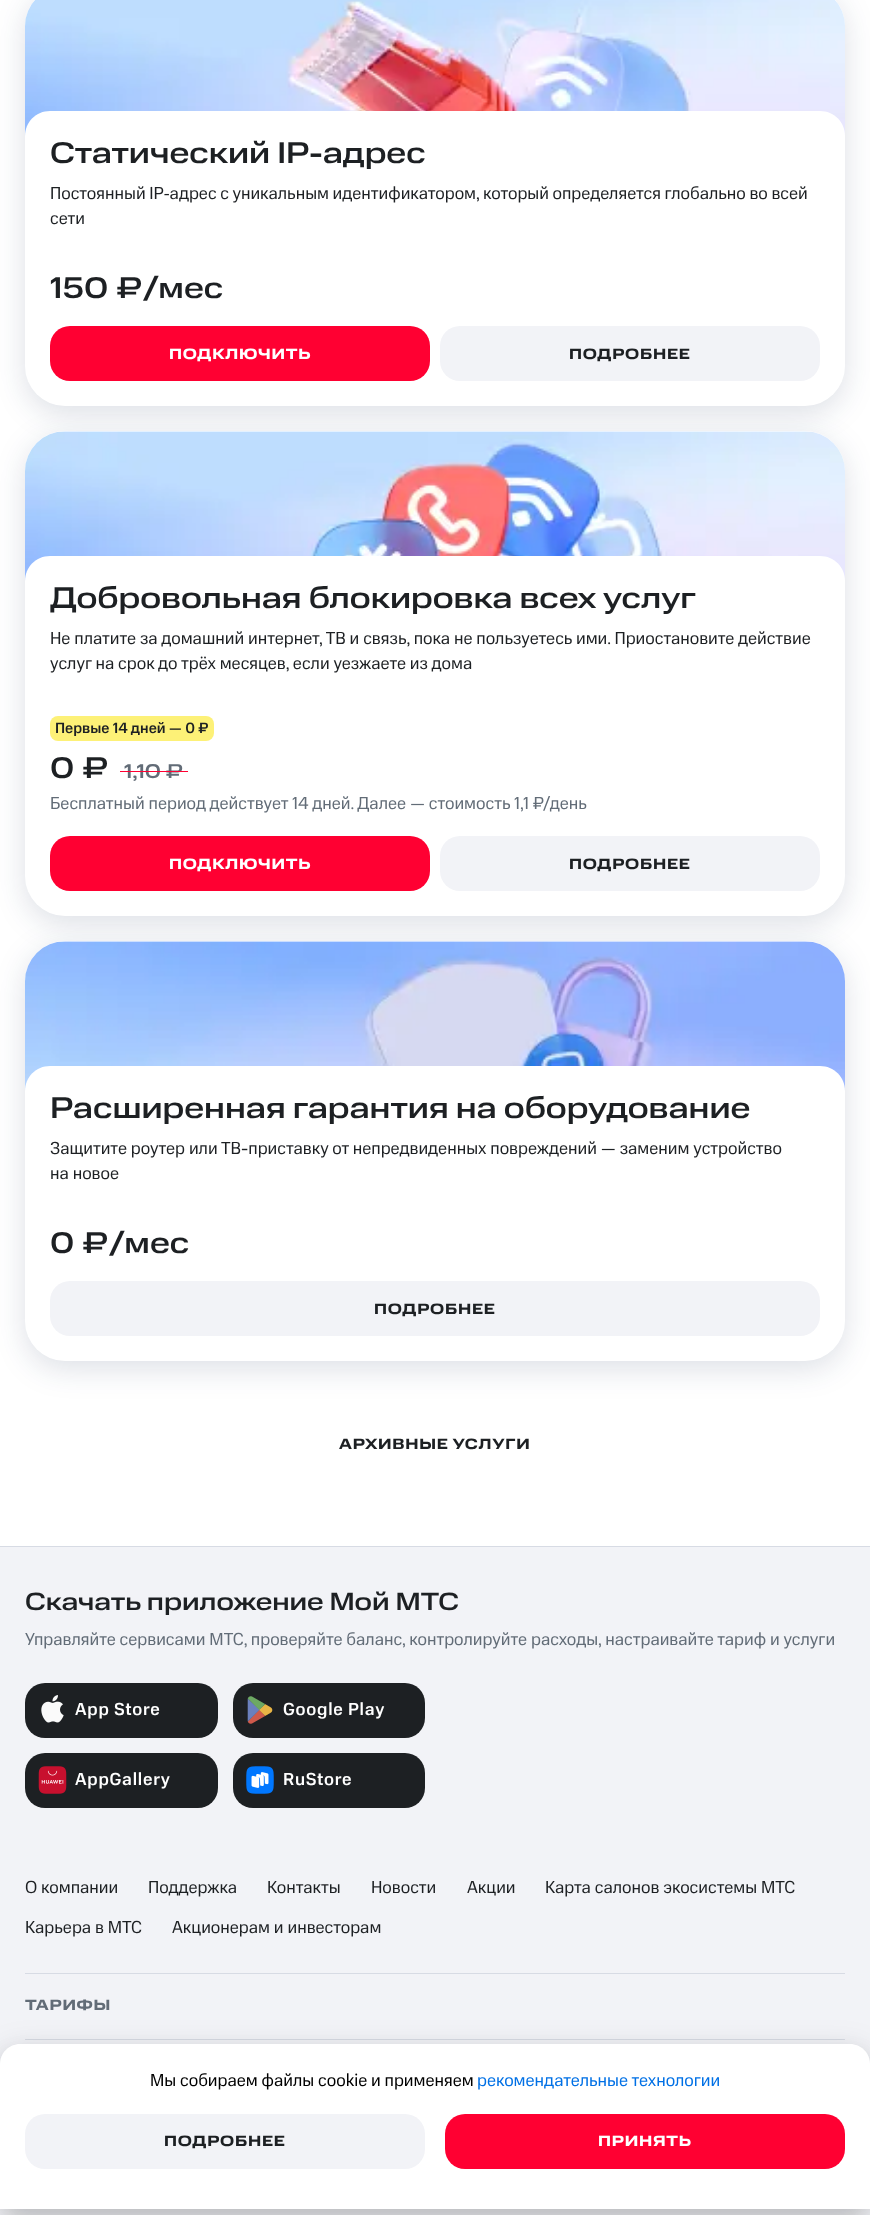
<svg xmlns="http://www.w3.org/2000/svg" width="870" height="2215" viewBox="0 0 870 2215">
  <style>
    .t1 { font: 500 30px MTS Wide; fill: #1d2023; }
    .t2 { font: 17.5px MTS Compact; fill: #1d2023; }
    .t3 { font: bold 15px MTS Wide; letter-spacing: 0.75px; fill: #fff; }
    .t4 { font: bold 15px MTS Wide; letter-spacing: 0.75px; fill: #1d2023; }
    .t5 { font: 500 15px MTS Compact; fill: #1d2023; }
    .t6 { font: 500 20px MTS Wide; fill: #626c77; }
    .t7 { font: 17.5px MTS Compact; fill: #626c77; }
    .t8 { font: 500 25px MTS Wide; fill: #1d2023; }
    .t9 { font: 500 17.5px MTS Compact; letter-spacing: 0.75px; fill: #fff; }
    .t10 { font: bold 15px MTS Wide; letter-spacing: 0.75px; fill: #626c77; }
    .t11 { font: 17.5px MTS Compact; fill: #000; }
    .t12 { font: 17.5px MTS Compact; fill: #0070e5; }
  </style>
  <rect width="100%" height="100%" fill="#fff"/>
  <rect x="25" y="-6" width="820" height="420" rx="40" fill="#0f224f24" filter="blur(15px)"/>
  <rect x="25" y="-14" width="820" height="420" rx="40" fill="#fff"/>
  <image x="25" y="0" width="820" height="136" href="images/1.png"/>
  <path d="M50 111H820C834 111 845 122 845 136V271H25V136C25 122 36 111 50 111Z" fill="#fff"/>
  <text x="50" y="163" class="t1">Статический IP-адрес</text>
  <text x="50" y="199" word-spacing="-0.25" class="t2">Постоянный IP‑адрес с уникальным идентификатором, который определяется глобально во всей</text>
  <text x="50" y="224" class="t2">сети</text>
  <text x="50" y="298" class="t1">150</text>
  <text x="116" y="298" class="t1">₽/мес</text>
  <rect x="50" y="326" width="380" height="55" rx="20" fill="#ff0032"/>
  <text x="169" y="359" class="t3">ПОДКЛЮЧИТЬ</text>
  <rect x="440" y="326" width="380" height="55" rx="20" fill="#f2f3f7"/>
  <text x="569" y="359" class="t4">ПОДРОБНЕЕ</text>
  <rect x="25" y="439" width="820" height="485" rx="40" fill="#0f224f24" filter="blur(15px)"/>
  <rect x="25" y="431" width="820" height="485" rx="40" fill="#fff"/>
  <image x="25" y="431" width="820" height="150" href="images/2.png"/>
  <path d="M50 556H820C834 556 845 567 845 581V716H25V581C25 567 36 556 50 556Z" fill="#fff"/>
  <text x="50" y="608" class="t1">Добровольная блокировка всех услуг</text>
  <text x="50" y="644" class="t2">Не платите за домашний интернет, ТВ и связь, пока не пользуетесь ими. Приостановите действие</text>
  <text x="50" y="669" class="t2">услуг на срок до трёх месяцев, если уезжаете из дома</text>
  <rect x="50" y="716" width="164" height="25" rx="8" fill="#fdf177"/>
  <text x="55" y="733" class="t5">Первые 14 дней — 0 ₽</text>
  <text x="50" y="778" class="t1">0</text>
  <text x="82" y="778" class="t1">₽</text>
  <text x="124" y="778" class="t6">1,10 ₽</text>
  <rect x="120" y="771" width="68" height="1" fill="#ff0032"/>
  <text x="50" y="809" class="t7">Бесплатный период действует 14 дней. Далее — стоимость 1,1 ₽/день</text>
  <rect x="50" y="836" width="380" height="55" rx="20" fill="#ff0032"/>
  <text x="169" y="869" class="t3">ПОДКЛЮЧИТЬ</text>
  <rect x="440" y="836" width="380" height="55" rx="20" fill="#f2f3f7"/>
  <text x="569" y="869" class="t4">ПОДРОБНЕЕ</text>
  <rect x="25" y="949" width="820" height="420" rx="40" fill="#0f224f24" filter="blur(15px)"/>
  <rect x="25" y="941" width="820" height="420" rx="40" fill="#fff"/>
  <image x="25" y="941" width="820" height="150" href="images/3.png"/>
  <path d="M50 1066H820C834 1066 845 1077 845 1091V1226H25V1091C25 1077 36 1066 50 1066Z" fill="#fff"/>
  <text x="50" y="1118" class="t1">Расширенная гарантия на оборудование</text>
  <text x="50" y="1154" class="t2">Защитите роутер или ТВ-приставку от непредвиденных повреждений — заменим устройство</text>
  <text x="50" y="1179" class="t2">на новое</text>
  <text x="50" y="1253" class="t1">0</text>
  <text x="82" y="1253" class="t1">₽/мес</text>
  <rect x="50" y="1281" width="770" height="55" rx="20" fill="#f2f3f7"/>
  <text x="374" y="1314" class="t4">ПОДРОБНЕЕ</text>
  <text x="339" y="1449" class="t4">АРХИВНЫЕ УСЛУГИ</text>
  <rect x="0" y="1547" width="870" height="668" fill="#f2f3f7"/>
  <rect x="0" y="1546" width="870" height="1" fill="#d7dbe4"/>
  <text x="25" y="1610" class="t8">Скачать приложение Мой МТС</text>
  <text x="25" y="1645" class="t7">Управляйте сервисами МТС, проверяйте баланс, контролируйте расходы, настраивайте тариф и услуги</text>
  <rect x="25" y="1683" width="193" height="55" rx="20" fill="#1d2023"/>
  <image x="41" y="1695" width="23" height="28" href="images/4.png"/>
  <text x="75" y="1715" class="t9">App Store</text>
  <rect x="233" y="1683" width="192" height="55" rx="20" fill="#1d2023"/>
  <image x="247" y="1696" width="26" height="28" href="images/5.png"/>
  <text x="283" y="1715" class="t9">Google Play</text>
  <rect x="25" y="1753" width="193" height="55" rx="20" fill="#1d2023"/>
  <image x="38" y="1766" width="29" height="28" href="images/6.png"/>
  <text x="75" y="1785" class="t9">AppGallery</text>
  <rect x="233" y="1753" width="192" height="55" rx="20" fill="#1d2023"/>
  <image x="246" y="1766" width="28" height="28" href="images/7.png"/>
  <text x="283" y="1785" class="t9">RuStore</text>
  <text x="25" y="1893" class="t2">О компании</text>
  <text x="148" y="1893" class="t2">Поддержка</text>
  <text x="267" y="1893" class="t2">Контакты</text>
  <text x="371" y="1893" class="t2">Новости</text>
  <text x="467" y="1893" class="t2">Акции</text>
  <text x="545" y="1893" class="t2">Карта салонов экосистемы МТС</text>
  <text x="25" y="1933" class="t2">Карьера в МТС</text>
  <text x="172" y="1933" class="t2">Акционерам и инвесторам</text>
  <rect x="25" y="1973" width="820" height="1" fill="#d7dbe4"/>
  <rect x="25" y="2039" width="820" height="1" fill="#d7dbe4"/>
  <text x="25" y="2010" class="t10">ТАРИФЫ</text>
  <rect x="0" y="2059" width="870" height="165" rx="20" fill="#00000024" filter="blur(12.5px)"/>
  <rect x="0" y="2049" width="870" height="165" rx="20" fill="#0000001f" filter="blur(15px)"/>
  <path d="M20 2044H850C861 2044 870 2053 870 2064V2209H0V2064C0 2053 9 2044 20 2044Z" fill="#fff"/>
  <text x="150" y="2086" class="t11">Мы собираем файлы cookie и применяем</text>
  <text x="477" y="2086" class="t12">рекомендательные технологии</text>
  <rect x="25" y="2114" width="400" height="55" rx="20" fill="#f2f3f7"/>
  <text x="164" y="2146" class="t4">ПОДРОБНЕЕ</text>
  <rect x="445" y="2114" width="400" height="55" rx="20" fill="#ff0032"/>
  <text x="598" y="2146" class="t3">ПРИНЯТЬ</text>
</svg>
